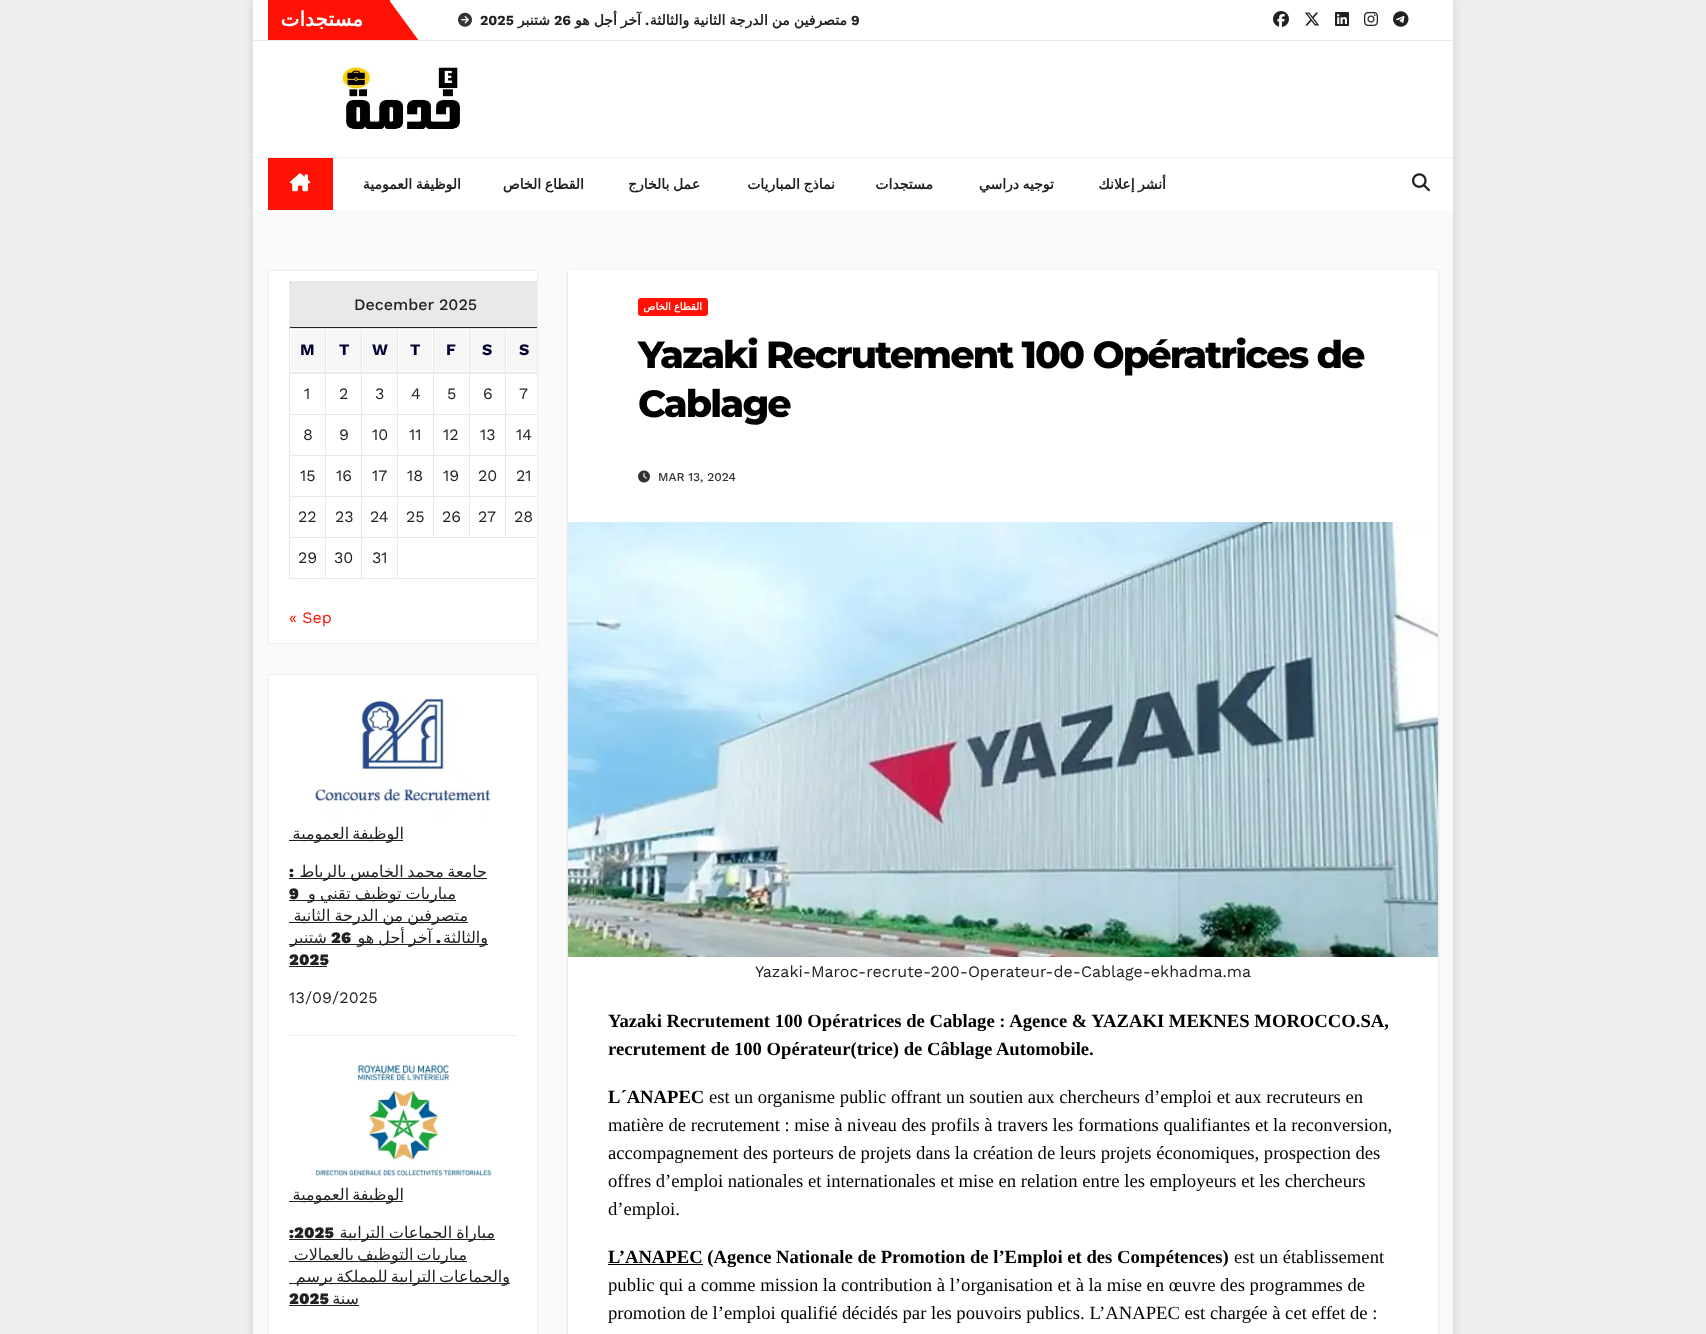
<svg xmlns="http://www.w3.org/2000/svg" width="1706" height="1334" viewBox="0 0 1706 1334">
  <style>
    .t1 { font: bold 20px DejaVu Sans; letter-spacing: -1px; direction: rtl; fill: #fff; }
    .t2 { font: bold 14px Work Sans; fill: #212121; }
    .t3 { font: bold 14px DejaVu Sans; direction: rtl; fill: #212121; }
    .t4 { font: bold 14px Work Sans; direction: rtl; fill: #212121; }
    .t5 { font: bold 14px DejaVu Sans; letter-spacing: 0.5px; direction: rtl; fill: #212121; }
    .t6 { font: 500 16px Work Sans; fill: #212121; }
    .t7 { font: bold 16px Work Sans; fill: #01012f; }
    .t8 { font: 16px Work Sans; fill: #212121; }
    .t9 { font: 16px Work Sans; fill: #ff1105; }
    .t10 { font: 16px DejaVu Sans; letter-spacing: 0.2px; direction: rtl; fill: #212121; }
    .t11 { font: 900 16px Work Sans; letter-spacing: 0.2px; direction: rtl; fill: #212121; }
    .t12 { font: 900 16px Work Sans; letter-spacing: 0.2px; fill: #212121; }
    .t13 { font: 16px Work Sans; letter-spacing: 0.2px; fill: #212121; }
    .t14 { font: bold 10px DejaVu Sans; direction: rtl; fill: #fff; }
    .t15 { font: 800 38px Montserrat; letter-spacing: -1.9px; fill: #000; }
    .t16 { font: 500 12px Work Sans; fill: #333; }
    .t17 { font: bold 18.65px Liberation Serif; fill: #000; }
    .t18 { font: 18.65px Liberation Serif; fill: #000; }
  </style>
  <defs>
    <clipPath id="clip1"><rect x="268" y="0" width="670" height="40"/></clipPath>
    <clipPath id="clip2"><rect x="269" y="271" width="268" height="372"/></clipPath>
  </defs>
  <rect width="100%" height="100%" fill="#eee"/>
  <rect x="253" y="0" width="1200" height="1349" fill="#0000001f" filter="blur(5px)"/>
  <rect x="253" y="210" width="1200" height="1124" fill="#fafafa"/>
  <rect x="253" y="0" width="1200" height="40" fill="#fff"/>
  <rect x="253" y="40" width="1200" height="1" fill="#e9e9e9"/>
  <rect x="268" y="0" width="122" height="40" fill="#ff1105"/>
  <text x="363" y="26" class="t1">مستجدات</text>
  <g clip-path="url(#clip1)">
    <path d="M389 41V0L419 41Z" fill="#ff1105"/>
  </g>
  <image x="458" y="12" width="14" height="15" href="images/1.png"/>
  <text x="480" y="25" class="t2">2025</text>
  <text x="550" y="25" class="t3">شتنبر</text>
  <text x="554" y="25" class="t2">26</text>
  <text x="641" y="25" word-spacing="-0.5" class="t3">آخر أجل هو</text>
  <text x="649" y="25" class="t4">.</text>
  <text x="847" y="25" word-spacing="-0.5" class="t3">متصرفين من الدرجة الثانية والثالثة</text>
  <text x="851" y="25" class="t2">9</text>
  <image x="1273" y="11" width="16" height="16" href="images/2.png"/>
  <image x="1305" y="12" width="15" height="14" href="images/3.png"/>
  <image x="1335" y="12" width="14" height="14" href="images/4.png"/>
  <image x="1364" y="12" width="14" height="14" href="images/5.png"/>
  <image x="1393" y="11" width="16" height="16" href="images/6.png"/>
  <rect x="253" y="41" width="1200" height="116" fill="#fff"/>
  <rect x="253" y="157" width="1200" height="1" fill="#efefef"/>
  <image x="341" y="66" width="119" height="63" href="images/7.png"/>
  <rect x="253" y="158" width="1200" height="52" fill="#fff"/>
  <rect x="268" y="158" width="65" height="52" fill="#ff1105"/>
  <image x="290" y="173" width="21" height="19" href="images/8.png"/>
  <text x="461" y="189" word-spacing="-1" class="t5">الوظيفة العمومية</text>
  <text x="584" y="189" word-spacing="-1" class="t5">القطاع الخاص</text>
  <text x="700" y="189" word-spacing="-1" class="t5">عمل بالخارج</text>
  <text x="835" y="189" word-spacing="-1" class="t5">نماذج المباريات</text>
  <text x="933" y="189" class="t5">مستجدات</text>
  <text x="1054" y="189" word-spacing="-1" class="t5">توجيه دراسي</text>
  <text x="1166" y="189" word-spacing="-1" class="t5">أنشر إعلانك</text>
  <image x="1412" y="173" width="18" height="19" href="images/9.png"/>
  <rect x="268.5" y="270.5" width="269" height="373" fill="#fff" stroke="#eee"/>
  <path d="M291 281H537V328H291C290 328 289 327 289 326V283C289 282 290 281 291 281Z" fill="#e9e9e9"/>
  <g clip-path="url(#clip2)">
    <rect x="289.5" y="281.5" width="252" height="46" rx="1.5" fill="none" stroke="#222"/>
  </g>
  <rect x="289" y="281" width="248" height="1" fill="#e9e9e9"/>
  <rect x="289" y="578" width="248" height="1" fill="#e9e9e9"/>
  <rect x="289" y="281" width="1" height="298" fill="#e9e9e9"/>
  <text x="354" y="310" class="t6">December 2025</text>
  <rect x="291" y="330" width="34" height="41" fill="#f6f6f6"/>
  <rect x="505" y="328" width="32" height="1" fill="#e9e9e9"/>
  <rect x="505" y="414" width="32" height="1" fill="#e9e9e9"/>
  <rect x="505" y="455" width="32" height="1" fill="#e9e9e9"/>
  <rect x="505" y="496" width="32" height="1" fill="#e9e9e9"/>
  <rect x="397" y="537" width="140" height="1" fill="#e9e9e9"/>
  <rect x="505" y="496" width="1" height="42" fill="#e9e9e9"/>
  <rect x="469" y="496" width="37" height="1" fill="#e9e9e9"/>
  <rect x="505" y="455" width="1" height="42" fill="#e9e9e9"/>
  <rect x="469" y="455" width="37" height="1" fill="#e9e9e9"/>
  <rect x="505" y="414" width="1" height="42" fill="#e9e9e9"/>
  <rect x="469" y="414" width="37" height="1" fill="#e9e9e9"/>
  <rect x="505" y="372" width="1" height="43" fill="#e9e9e9"/>
  <rect x="505" y="328" width="1" height="45" fill="#e9e9e9"/>
  <rect x="469" y="328" width="37" height="1" fill="#e9e9e9"/>
  <rect x="469" y="496" width="1" height="42" fill="#e9e9e9"/>
  <rect x="433" y="496" width="37" height="1" fill="#e9e9e9"/>
  <rect x="469" y="455" width="1" height="42" fill="#e9e9e9"/>
  <rect x="433" y="455" width="37" height="1" fill="#e9e9e9"/>
  <rect x="469" y="414" width="1" height="42" fill="#e9e9e9"/>
  <rect x="433" y="414" width="37" height="1" fill="#e9e9e9"/>
  <rect x="469" y="372" width="1" height="43" fill="#e9e9e9"/>
  <rect x="469" y="328" width="1" height="45" fill="#e9e9e9"/>
  <rect x="433" y="328" width="37" height="1" fill="#e9e9e9"/>
  <rect x="433" y="496" width="1" height="42" fill="#e9e9e9"/>
  <rect x="397" y="496" width="37" height="1" fill="#e9e9e9"/>
  <rect x="433" y="455" width="1" height="42" fill="#e9e9e9"/>
  <rect x="397" y="455" width="37" height="1" fill="#e9e9e9"/>
  <rect x="433" y="414" width="1" height="42" fill="#e9e9e9"/>
  <rect x="397" y="414" width="37" height="1" fill="#e9e9e9"/>
  <rect x="433" y="372" width="1" height="43" fill="#e9e9e9"/>
  <rect x="433" y="328" width="1" height="45" fill="#e9e9e9"/>
  <rect x="397" y="328" width="37" height="1" fill="#e9e9e9"/>
  <rect x="397" y="537" width="1" height="42" fill="#e9e9e9"/>
  <rect x="361" y="537" width="37" height="1" fill="#e9e9e9"/>
  <rect x="397" y="496" width="1" height="42" fill="#e9e9e9"/>
  <rect x="361" y="496" width="37" height="1" fill="#e9e9e9"/>
  <rect x="397" y="455" width="1" height="42" fill="#e9e9e9"/>
  <rect x="361" y="455" width="37" height="1" fill="#e9e9e9"/>
  <rect x="397" y="414" width="1" height="42" fill="#e9e9e9"/>
  <rect x="361" y="414" width="37" height="1" fill="#e9e9e9"/>
  <rect x="397" y="372" width="1" height="43" fill="#e9e9e9"/>
  <rect x="397" y="328" width="1" height="45" fill="#e9e9e9"/>
  <rect x="361" y="328" width="37" height="1" fill="#e9e9e9"/>
  <rect x="361" y="537" width="1" height="42" fill="#e9e9e9"/>
  <rect x="325" y="537" width="37" height="1" fill="#e9e9e9"/>
  <rect x="361" y="496" width="1" height="42" fill="#e9e9e9"/>
  <rect x="325" y="496" width="37" height="1" fill="#e9e9e9"/>
  <rect x="361" y="455" width="1" height="42" fill="#e9e9e9"/>
  <rect x="325" y="455" width="37" height="1" fill="#e9e9e9"/>
  <rect x="361" y="414" width="1" height="42" fill="#e9e9e9"/>
  <rect x="325" y="414" width="37" height="1" fill="#e9e9e9"/>
  <rect x="361" y="372" width="1" height="43" fill="#e9e9e9"/>
  <rect x="361" y="328" width="1" height="45" fill="#e9e9e9"/>
  <rect x="325" y="328" width="37" height="1" fill="#e9e9e9"/>
  <rect x="325" y="537" width="1" height="42" fill="#e9e9e9"/>
  <rect x="289" y="537" width="37" height="1" fill="#e9e9e9"/>
  <rect x="325" y="496" width="1" height="42" fill="#e9e9e9"/>
  <rect x="289" y="496" width="37" height="1" fill="#e9e9e9"/>
  <rect x="325" y="455" width="1" height="42" fill="#e9e9e9"/>
  <rect x="289" y="455" width="37" height="1" fill="#e9e9e9"/>
  <rect x="325" y="414" width="1" height="42" fill="#e9e9e9"/>
  <rect x="289" y="414" width="37" height="1" fill="#e9e9e9"/>
  <rect x="325" y="372" width="1" height="43" fill="#e9e9e9"/>
  <rect x="325" y="328" width="1" height="45" fill="#e9e9e9"/>
  <rect x="289" y="328" width="37" height="1" fill="#e9e9e9"/>
  <text x="300" y="355" class="t7">M</text>
  <rect x="327" y="330" width="34" height="41" fill="#f6f6f6"/>
  <text x="339" y="355" class="t7">T</text>
  <rect x="363" y="330" width="34" height="41" fill="#f6f6f6"/>
  <text x="372" y="355" class="t7">W</text>
  <rect x="399" y="330" width="33" height="41" fill="#f6f6f6"/>
  <text x="410" y="355" class="t7">T</text>
  <rect x="434" y="330" width="34" height="41" fill="#f6f6f6"/>
  <text x="446" y="355" class="t7">F</text>
  <rect x="470" y="330" width="35" height="41" fill="#f6f6f6"/>
  <text x="482" y="355" class="t7">S</text>
  <rect x="507" y="330" width="30" height="41" fill="#f6f6f6"/>
  <rect x="289" y="372" width="248" height="2" fill="#e9e9e9"/>
  <text x="519" y="355" class="t7">S</text>
  <text x="304" y="399" class="t8">1</text>
  <text x="339" y="399" class="t8">2</text>
  <text x="375" y="399" class="t8">3</text>
  <text x="411" y="399" class="t8">4</text>
  <text x="447" y="399" class="t8">5</text>
  <text x="483" y="399" class="t8">6</text>
  <text x="519" y="399" class="t8">7</text>
  <text x="303" y="440" class="t8">8</text>
  <text x="339" y="440" class="t8">9</text>
  <text x="372" y="440" class="t8">10</text>
  <text x="409" y="440" class="t8">11</text>
  <text x="443" y="440" class="t8">12</text>
  <text x="480" y="440" class="t8">13</text>
  <text x="516" y="440" class="t8">14</text>
  <text x="300" y="481" class="t8">15</text>
  <text x="336" y="481" class="t8">16</text>
  <text x="372" y="481" class="t8">17</text>
  <text x="407" y="481" class="t8">18</text>
  <text x="443" y="481" class="t8">19</text>
  <text x="478" y="481" class="t8">20</text>
  <text x="516" y="481" class="t8">21</text>
  <text x="298" y="522" class="t8">22</text>
  <text x="335" y="522" class="t8">23</text>
  <text x="370" y="522" class="t8">24</text>
  <text x="406" y="522" class="t8">25</text>
  <text x="442" y="522" class="t8">26</text>
  <text x="478" y="522" class="t8">27</text>
  <text x="514" y="522" class="t8">28</text>
  <text x="298" y="563" class="t8">29</text>
  <text x="334" y="563" class="t8">30</text>
  <text x="372" y="563" class="t8">31</text>
  <text x="289" y="623" class="t9">« Sep</text>
  <rect x="268.5" y="674.5" width="269" height="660" fill="#fff" stroke="#eee"/>
  <rect x="289" y="1035" width="228" height="1" fill="#eee"/>
  <image x="313" y="698" width="178" height="122" href="images/10.png"/>
  <rect x="289" y="840" width="114" height="1" fill="#222"/>
  <text x="404" y="839" word-spacing="-2" class="t10">الوظيفة العمومية</text>
  <text x="294" y="877" class="t11">:</text>
  <rect x="289" y="878" width="198" height="1" fill="#222"/>
  <text x="487" y="877" word-spacing="-1.5" class="t10">جامعة محمد الخامس بالرباط</text>
  <text x="289" y="899" class="t12">9</text>
  <rect x="289" y="900" width="167" height="1" fill="#222"/>
  <text x="456" y="899" word-spacing="-1" class="t10">مباريات توظيف تقني و</text>
  <rect x="289" y="922" width="179" height="1" fill="#222"/>
  <text x="468" y="921" word-spacing="-1" class="t10">متصرفين من الدرجة الثانية</text>
  <rect x="289" y="944" width="199" height="1" fill="#222"/>
  <text x="327" y="943" class="t10">شتنبر</text>
  <text x="331" y="943" class="t12">26</text>
  <text x="432" y="943" word-spacing="-1" class="t10">آخر أجل هو</text>
  <text x="441" y="943" class="t11">.</text>
  <text x="488" y="943" class="t10">والثالثة</text>
  <text x="289" y="965" class="t12">2025</text>
  <rect x="289" y="966" width="38" height="1" fill="#222"/>
  <text x="289" y="1003" class="t13">13/09/2025</text>
  <image x="315" y="1063" width="177" height="113" href="images/11.png"/>
  <rect x="289" y="1201" width="114" height="1" fill="#222"/>
  <text x="404" y="1200" word-spacing="-2" class="t10">الوظيفة العمومية</text>
  <text x="289" y="1238" class="t12">:</text>
  <rect x="289" y="1239" width="206" height="1" fill="#222"/>
  <text x="294" y="1238" class="t12">2025</text>
  <text x="495" y="1238" word-spacing="-1" class="t10">مباراة الجماعات الترابية</text>
  <rect x="289" y="1261" width="178" height="1" fill="#222"/>
  <text x="467" y="1260" word-spacing="-2" class="t10">مباريات التوظيف بالعمالات</text>
  <rect x="289" y="1283" width="221" height="1" fill="#222"/>
  <text x="510" y="1282" word-spacing="-2" class="t10">والجماعات الترابية للمملكة برسم</text>
  <text x="289" y="1304" class="t12">2025</text>
  <text x="359" y="1304" class="t10">سنة</text>
  <rect x="289" y="1305" width="70" height="1" fill="#222"/>
  <rect x="568" y="271" width="870" height="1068" fill="#00000026" filter="blur(1.5px)"/>
  <rect x="568" y="270" width="870" height="1064" fill="#fff"/>
  <rect x="638" y="298" width="70" height="18" rx="3" fill="#ff1105"/>
  <text x="702" y="310" class="t14">القطاع الخاص</text>
  <text x="638" y="368" class="t15">Yazaki Recrutement 100 Opératrices de</text>
  <text x="638" y="417" class="t15">Cablage</text>
  <image x="638" y="470" width="12" height="13" href="images/12.png"/>
  <text x="658" y="481" class="t16">MAR 13, 2024</text>
  <image x="568" y="522" width="870" height="435" href="images/13.png"/>
  <text x="755" y="977" class="t8">Yazaki-Maroc-recrute-200-Operateur-de-Cablage-ekhadma.ma</text>
  <text x="608" y="1027" class="t17">Yazaki Recrutement 100 Opératrices de Cablage : Agence &amp; YAZAKI MEKNES MOROCCO.SA,</text>
  <text x="608" y="1055" class="t17">recrutement de 100 Opérateur(trice) de Câblage Automobile.</text>
  <text x="608" y="1103" class="t17">L´ANAPEC</text>
  <text x="709" y="1103" class="t18">est un organisme public offrant un soutien aux chercheurs d’emploi et aux recruteurs en</text>
  <text x="608" y="1131" class="t18">matière de recrutement : mise à niveau des profils à travers les formations qualifiantes et la reconversion,</text>
  <text x="608" y="1159" class="t18">accompagnement des porteurs de projets dans la création de leurs projets économiques, prospection des</text>
  <text x="608" y="1187" class="t18">offres d’emploi nationales et internationales et mise en relation entre les employeurs et les chercheurs</text>
  <text x="608" y="1215" class="t18">d’emploi.</text>
  <rect x="608" y="1264" width="95" height="1" fill="#000"/>
  <text x="608" y="1263" class="t17">L’ANAPEC (Agence Nationale de Promotion de l’Emploi et des Compétences)</text>
  <text x="1234" y="1263" class="t18">est un établissement</text>
  <text x="608" y="1291" class="t18">public qui a comme mission la contribution à l’organisation et à la mise en œuvre des programmes de</text>
  <text x="608" y="1319" class="t18">promotion de l’emploi qualifié décidés par les pouvoirs publics. L’ANAPEC est chargée à cet effet de :</text>
</svg>
